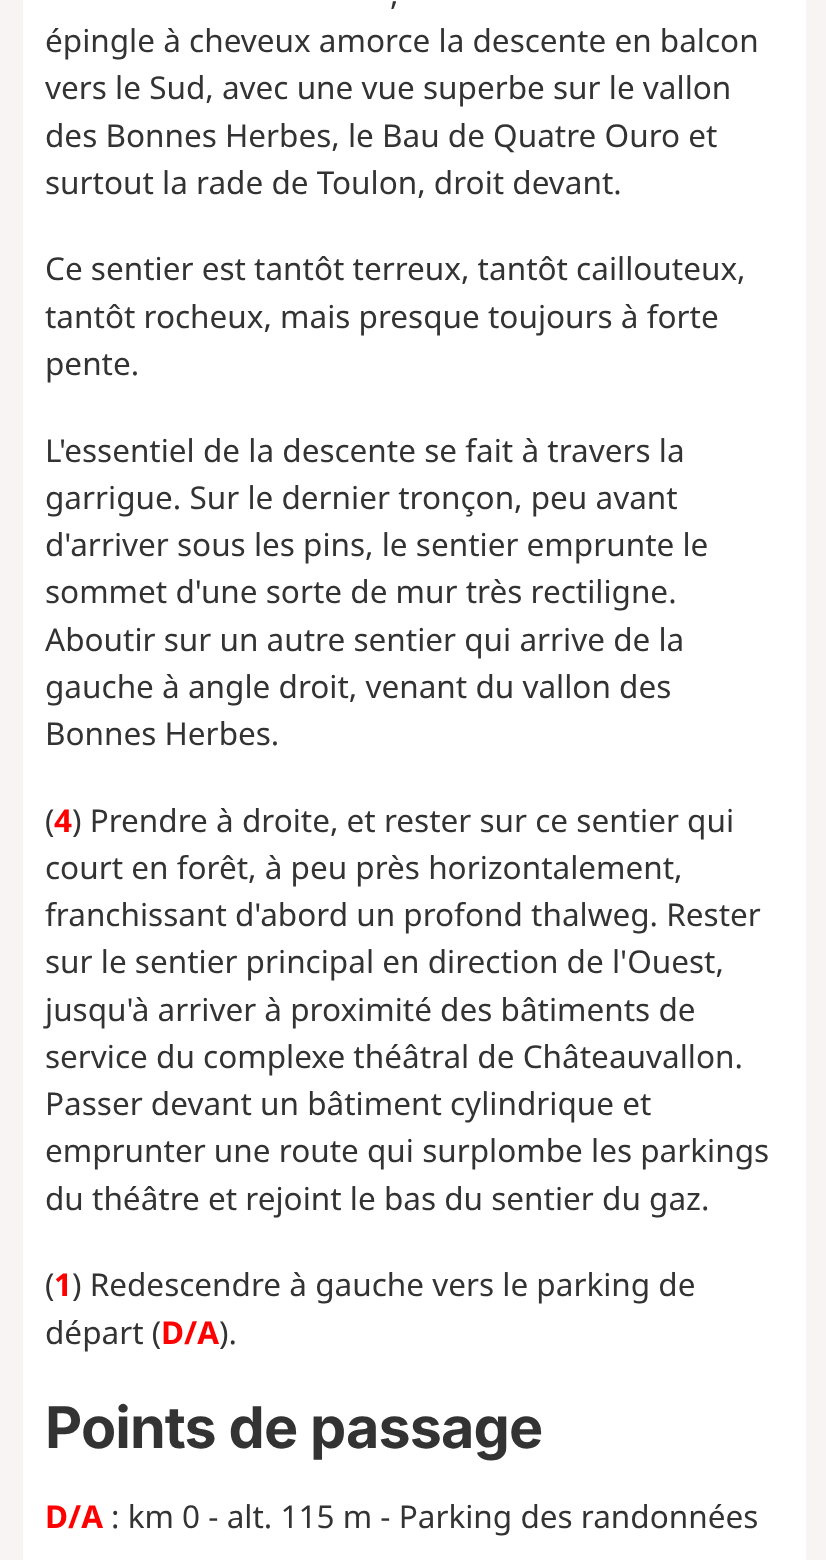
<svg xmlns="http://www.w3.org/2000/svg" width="826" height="1560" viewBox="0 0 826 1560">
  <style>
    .t1 { font: 31.5px Noto Sans; fill: #333; }
    .t2 { font: bold 31.5px Noto Sans; fill: #f00; }
    .t3 { font: bold 57.5px Inter; letter-spacing: -0.9px; fill: #333; }
  </style>
  <rect width="100%" height="100%" fill="#f7f4f3"/>
  <rect x="23" y="0" width="783" height="1560" fill="#fff"/>
  <text x="390" y="5" class="t1">,</text>
  <text x="45" y="52" class="t1">épingle à cheveux amorce la descente en balcon</text>
  <text x="45" y="99" class="t1">vers le Sud, avec une vue superbe sur le vallon</text>
  <text x="45" y="147" class="t1">des Bonnes Herbes, le Bau de Quatre Ouro et</text>
  <text x="45" y="194" class="t1">surtout la rade de Toulon, droit devant.</text>
  <text x="45" y="280" class="t1">Ce sentier est tantôt terreux, tantôt caillouteux,</text>
  <text x="45" y="328" class="t1">tantôt rocheux, mais presque toujours à forte</text>
  <text x="45" y="375" class="t1">pente.</text>
  <text x="45" y="462" class="t1">L'essentiel de la descente se fait à travers la</text>
  <text x="45" y="509" class="t1">garrigue. Sur le dernier tronçon, peu avant</text>
  <text x="45" y="556" class="t1">d'arriver sous les pins, le sentier emprunte le</text>
  <text x="45" y="603" class="t1">sommet d'une sorte de mur très rectiligne.</text>
  <text x="45" y="651" class="t1">Aboutir sur un autre sentier qui arrive de la</text>
  <text x="45" y="698" class="t1">gauche à angle droit, venant du vallon des</text>
  <text x="45" y="745" class="t1">Bonnes Herbes.</text>
  <text x="45" y="832" class="t1">(</text>
  <text x="54" y="832" class="t2">4</text>
  <text x="72" y="832" class="t1">) Prendre à droite, et rester sur ce sentier qui</text>
  <text x="45" y="879" class="t1">court en forêt, à peu près horizontalement,</text>
  <text x="45" y="926" class="t1">franchissant d'abord un profond thalweg. Rester</text>
  <text x="45" y="973" class="t1">sur le sentier principal en direction de l'Ouest,</text>
  <text x="45" y="1021" class="t1">jusqu'à arriver à proximité des bâtiments de</text>
  <text x="45" y="1068" class="t1">service du complexe théâtral de Châteauvallon.</text>
  <text x="45" y="1115" class="t1">Passer devant un bâtiment cylindrique et</text>
  <text x="45" y="1162" class="t1">emprunter une route qui surplombe les parkings</text>
  <text x="45" y="1210" class="t1">du théâtre et rejoint le bas du sentier du gaz.</text>
  <text x="45" y="1296" class="t1">(</text>
  <text x="54" y="1296" class="t2">1</text>
  <text x="72" y="1296" class="t1">) Redescendre à gauche vers le parking de</text>
  <text x="45" y="1344" class="t1">départ (</text>
  <text x="161" y="1344" class="t2">D/A</text>
  <text x="219" y="1344" class="t1">).</text>
  <text x="45" y="1448" class="t3">Points de passage</text>
  <text x="45" y="1528" class="t2">D/A</text>
  <text x="111" y="1528" class="t1">: km 0 - alt. 115 m - Parking des randonnées</text>
</svg>
